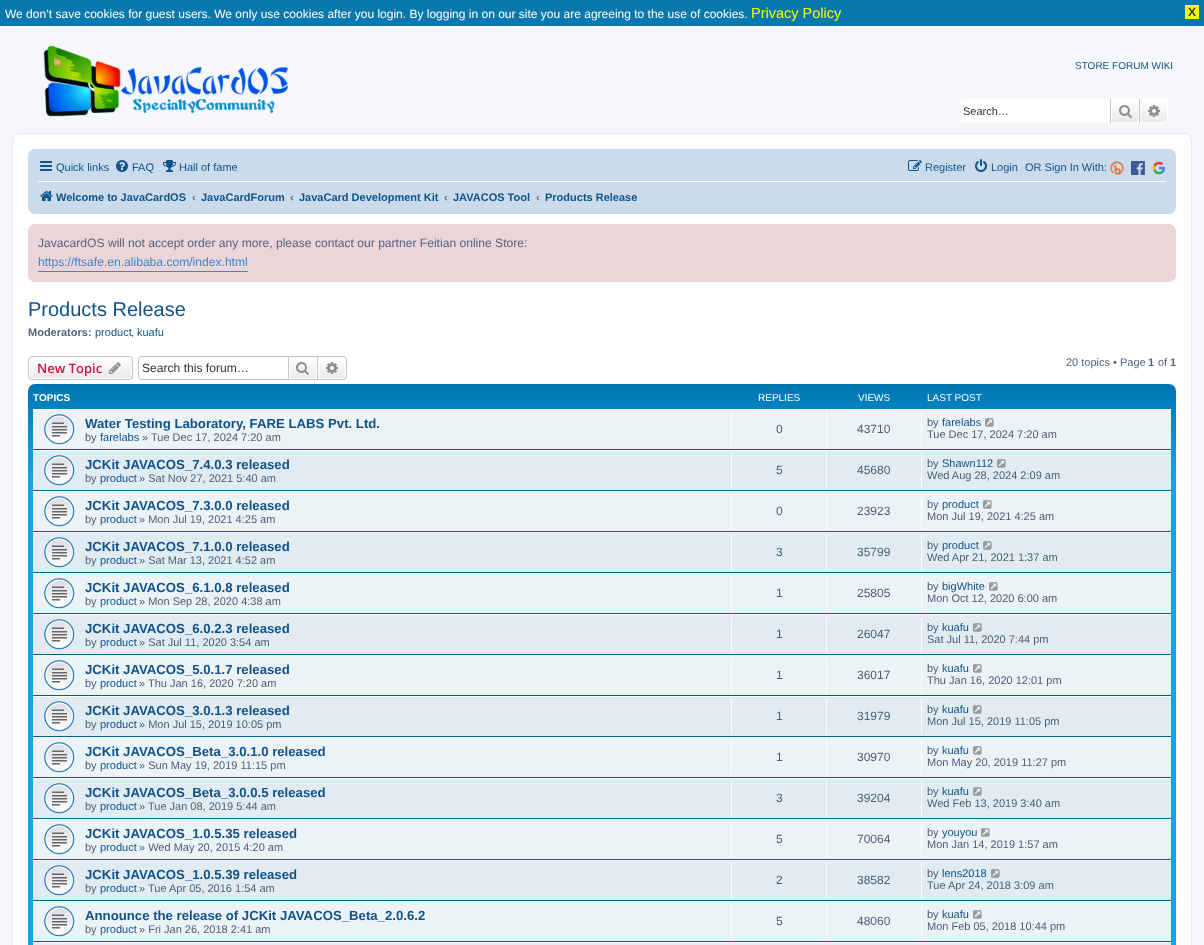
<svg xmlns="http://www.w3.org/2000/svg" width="1204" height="945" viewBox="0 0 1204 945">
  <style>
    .t1 { font: 12px Liberation Sans; fill: #fff; }
    .t2 { font: 14.5px Liberation Sans; fill: #f7ff00; }
    .t3 { font: bold 12px Liberation Sans; fill: #333; }
    .t4 { font: 10px Liberation Sans; fill: #105289; }
    .t5 { font: 11px Liberation Sans; fill: #333; }
    .t6 { font: 11px Liberation Sans; fill: #105289; }
    .t7 { font: bold 11px Liberation Sans; fill: #105289; }
    .t8 { font: bold 11px Liberation Sans; fill: #536482; }
    .t9 { font: 12.1px Liberation Sans; fill: #536482; }
    .t10 { font: 12.1px Liberation Sans; fill: #368ad2; }
    .t11 { font: 20px Liberation Sans; fill: #105289; }
    .t12 { font: 11px Liberation Sans; fill: #536482; }
    .t13 { font: 600 13px Open Sans; fill: #d31141; }
    .t14 { font: 12.1px Liberation Sans; fill: #333; }
    .t15 { font: bold 10px Liberation Sans; fill: #fff; }
    .t16 { font: 10px Liberation Sans; fill: #fff; }
    .t17 { font: bold 13.2px Liberation Sans; fill: #105289; }
    .t18 { font: 11px Liberation Sans; fill: #4c5d77; }
    .t19 { font: 12px Liberation Sans; fill: #4c5d77; }
  </style>
  <defs>
    <linearGradient id="g1" gradientUnits="userSpaceOnUse" x1="1125" y1="99" x2="1125" y2="123"><stop offset="0" stop-color="#fff"/><stop offset="1" stop-color="#e9e9e9"/></linearGradient>
    <linearGradient id="g2" gradientUnits="userSpaceOnUse" x1="1154" y1="99" x2="1154" y2="123"><stop offset="0" stop-color="#fff"/><stop offset="1" stop-color="#e9e9e9"/></linearGradient>
    <clipPath id="clip1"><rect x="28" y="356" width="105" height="24" rx="4"/></clipPath>
    <linearGradient id="g3" gradientUnits="userSpaceOnUse" x1="81" y1="357" x2="81" y2="379"><stop offset="0" stop-color="#fff"/><stop offset="1" stop-color="#e9e9e9"/></linearGradient>
    <linearGradient id="g4" gradientUnits="userSpaceOnUse" x1="303" y1="357" x2="303" y2="379"><stop offset="0" stop-color="#fff"/><stop offset="1" stop-color="#e9e9e9"/></linearGradient>
    <linearGradient id="g5" gradientUnits="userSpaceOnUse" x1="332" y1="357" x2="332" y2="379"><stop offset="0" stop-color="#fff"/><stop offset="1" stop-color="#e9e9e9"/></linearGradient>
    <linearGradient id="g6" gradientUnits="userSpaceOnUse" x1="602" y1="384" x2="602" y2="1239"><stop offset="0" stop-color="#6aceff"/><stop offset="0" stop-color="#0076b1"/><stop offset="0.11" stop-color="#12a3eb"/><stop offset="1" stop-color="#12a3eb"/></linearGradient>
  </defs>
  <rect width="100%" height="100%" fill="#f5f7fa"/>
  <rect x="0" y="0" width="1204" height="26" fill="#0978ac"/>
  <text x="5" y="18" class="t1">We don’t save cookies for guest users. We only use cookies after you login. By logging in on our site you are agreeing to the use of cookies.</text>
  <text x="751" y="18" class="t2">Privacy Policy</text>
  <rect x="1185" y="5" width="14" height="14" fill="#f7ff00"/>
  <text x="1188" y="16" class="t3">X</text>
  <image x="43" y="45" width="246" height="72" href="images/1.png"/>
  <text x="1075" y="69" class="t4">STORE FORUM WIKI</text>
  <path d="M964 99H1110V123H964C962 123 960 121 960 119V103C960 101 962 99 964 99Z" fill="#fff"/>
  <text x="963" y="115" class="t5">Search…</text>
  <rect x="1112" y="100" width="26" height="22" fill="url(#g1)"/>
  <rect x="1111.5" y="99.5" width="27" height="23" fill="none" stroke="#fff"/>
  <rect x="1139" y="99" width="1" height="24" fill="#c7c3bf"/>
  <rect x="1110" y="99" width="1" height="24" fill="#c7c3bf"/>
  <image x="1119" y="105" width="13" height="13" href="images/2.png"/>
  <path d="M1140.5 99.5H1164C1166 99.5 1167.5 101 1167.5 103V119C1167.5 121 1166 122.5 1164 122.5H1140.5Z" fill="url(#g2)" stroke="#fff"/>
  <image x="1148" y="105" width="12" height="12" href="images/3.png"/>
  <rect x="12.5" y="133.5" width="1179" height="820" rx="7.5" fill="#fff" stroke="#e6e9ed"/>
  <rect x="28" y="149" width="1148" height="65" rx="7" fill="#cadceb"/>
  <image x="40" y="161" width="12" height="10" href="images/4.png"/>
  <text x="56" y="171" class="t6">Quick links</text>
  <image x="116" y="160" width="12" height="12" href="images/5.png"/>
  <text x="132" y="171" class="t6">FAQ</text>
  <image x="163" y="160" width="13" height="12" href="images/6.png"/>
  <text x="179" y="171" class="t6">Hall of fame</text>
  <image x="908" y="160" width="14" height="11" href="images/7.png"/>
  <text x="925" y="171" class="t6">Register</text>
  <image x="975" y="159" width="12" height="13" href="images/8.png"/>
  <text x="991" y="171" class="t6">Login</text>
  <text x="1025" y="171" class="t6">OR Sign In With:</text>
  <image x="1110" y="161" width="14" height="14" href="images/9.png"/>
  <image x="1131" y="161" width="14" height="14" href="images/10.png"/>
  <image x="1152" y="161" width="13" height="14" href="images/11.png"/>
  <rect x="38" y="181" width="1128" height="1" fill="#fff"/>
  <image x="40" y="191" width="13" height="10" href="images/12.png"/>
  <text x="56" y="201" class="t7">Welcome to JavaCardOS</text>
  <text x="192" y="201" class="t8">‹</text>
  <text x="201" y="201" class="t7">JavaCardForum</text>
  <text x="290" y="201" class="t8">‹</text>
  <text x="299" y="201" class="t7">JavaCard Development Kit</text>
  <text x="444" y="201" class="t8">‹</text>
  <text x="453" y="201" class="t7">JAVACOS Tool</text>
  <text x="536" y="201" class="t8">‹</text>
  <text x="545" y="201" class="t7">Products Release</text>
  <rect x="28" y="224" width="1148" height="58" rx="7" fill="#ecd5d8"/>
  <text x="38" y="247" class="t9">JavacardOS will not accept order any more, please contact our partner Feitian online Store:</text>
  <rect x="38" y="271" width="210" height="1" fill="#368ad2"/>
  <text x="38" y="266" class="t10">https://ftsafe.en.alibaba.com/index.html</text>
  <text x="28" y="316" class="t11">Products Release</text>
  <text x="28" y="336" class="t8">Moderators:</text>
  <text x="95" y="336" class="t6">product</text>
  <text x="131" y="336" class="t12">,</text>
  <text x="137" y="336" class="t6">kuafu</text>
  <g clip-path="url(#clip1)">
    <rect x="28" y="357" width="105" height="22" fill="url(#g3)"/>
  </g>
  <rect x="29.5" y="357.5" width="102" height="21" rx="2.5" fill="none" stroke="#fff"/>
  <rect x="28.5" y="356.5" width="104" height="23" rx="3.5" fill="none" stroke="#c7c3bf"/>
  <text x="37" y="373" class="t13">New Topic</text>
  <image x="109" y="362" width="12" height="12" href="images/13.png"/>
  <path d="M142 356H288V380H142C140 380 138 378 138 376V360C138 358 140 356 142 356ZM142 357H288V379H142C140 379 139 378 139 376V360C139 358 140 357 142 357Z" fill="#c7c3bf" fill-rule="evenodd"/>
  <text x="142" y="372" class="t14">Search this forum…</text>
  <rect x="290" y="360" width="26" height="18" fill="url(#g4)"/>
  <rect x="288.5" y="356.5" width="29" height="23" fill="none" stroke="#c7c3bf"/>
  <image x="296" y="362" width="13" height="13" href="images/14.png"/>
  <path d="M318.5 357.5H343C344.5 357.5 345.5 358.5 345.5 360V376C345.5 377.5 344.5 378.5 343 378.5H318.5Z" fill="url(#g5)" stroke="#fff"/>
  <path d="M318 356H343C345 356 347 358 347 360V376C347 378 345 380 343 380H318ZM318 357H343C344.5 357 346 358.5 346 360V376C346 377.5 344.5 379 343 379H318Z" fill="#c7c3bf" fill-rule="evenodd"/>
  <image x="326" y="362" width="12" height="12" href="images/15.png"/>
  <text x="1066" y="366" class="t12">20 topics • Page</text>
  <text x="1148" y="366" class="t8">1</text>
  <text x="1158" y="366" class="t12">of</text>
  <text x="1170" y="366" class="t8">1</text>
  <rect x="28" y="384" width="1148" height="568" rx="7" fill="url(#g6)"/>
  <text x="33" y="401" class="t15">TOPICS</text>
  <text x="758" y="401" class="t16">REPLIES</text>
  <text x="858" y="401" class="t16">VIEWS</text>
  <text x="927" y="401" class="t16">LAST POST</text>
  <rect x="33" y="410" width="1138" height="39" fill="#ecf3f7"/>
  <rect x="33" y="409" width="1138" height="1" fill="#fff"/>
  <rect x="33" y="449" width="1138" height="1" fill="#00608f"/>
  <image x="44" y="414" width="31" height="31" href="images/16.png"/>
  <text x="85" y="428" class="t17">Water Testing Laboratory, FARE LABS Pvt. Ltd.</text>
  <text x="85" y="441" class="t18">by</text>
  <text x="100" y="441" class="t6">farelabs</text>
  <text x="142" y="441" class="t18">» Tue Dec 17, 2024 7:20 am</text>
  <rect x="731" y="412" width="1" height="35" fill="#fff"/>
  <text x="776" y="433" class="t19">0</text>
  <rect x="826" y="412" width="1" height="35" fill="#fff"/>
  <text x="857" y="433" class="t19">43710</text>
  <rect x="921" y="412" width="1" height="35" fill="#fff"/>
  <text x="927" y="426" class="t18">by</text>
  <text x="942" y="426" class="t6">farelabs</text>
  <image x="985" y="418" width="9" height="9" href="images/17.png"/>
  <text x="927" y="438" class="t18">Tue Dec 17, 2024 7:20 am</text>
  <rect x="33" y="451" width="1138" height="39" fill="#e1ebf2"/>
  <rect x="33" y="450" width="1138" height="1" fill="#fff"/>
  <rect x="33" y="490" width="1138" height="1" fill="#00608f"/>
  <image x="44" y="455" width="31" height="31" href="images/18.png"/>
  <text x="85" y="469" class="t17">JCKit JAVACOS_7.4.0.3 released</text>
  <text x="85" y="482" class="t18">by</text>
  <text x="100" y="482" class="t6">product</text>
  <text x="139" y="482" class="t18">» Sat Nov 27, 2021 5:40 am</text>
  <rect x="731" y="453" width="1" height="35" fill="#fff"/>
  <text x="776" y="474" class="t19">5</text>
  <rect x="826" y="453" width="1" height="35" fill="#fff"/>
  <text x="857" y="474" class="t19">45680</text>
  <rect x="921" y="453" width="1" height="35" fill="#fff"/>
  <text x="927" y="467" class="t18">by</text>
  <text x="942" y="467" class="t6">Shawn112</text>
  <image x="997" y="459" width="9" height="9" href="images/19.png"/>
  <text x="927" y="479" class="t18">Wed Aug 28, 2024 2:09 am</text>
  <rect x="33" y="492" width="1138" height="39" fill="#ecf3f7"/>
  <rect x="33" y="491" width="1138" height="1" fill="#fff"/>
  <rect x="33" y="531" width="1138" height="1" fill="#00608f"/>
  <image x="44" y="496" width="31" height="31" href="images/16.png"/>
  <text x="85" y="510" class="t17">JCKit JAVACOS_7.3.0.0 released</text>
  <text x="85" y="523" class="t18">by</text>
  <text x="100" y="523" class="t6">product</text>
  <text x="139" y="523" class="t18">» Mon Jul 19, 2021 4:25 am</text>
  <rect x="731" y="494" width="1" height="35" fill="#fff"/>
  <text x="776" y="515" class="t19">0</text>
  <rect x="826" y="494" width="1" height="35" fill="#fff"/>
  <text x="857" y="515" class="t19">23923</text>
  <rect x="921" y="494" width="1" height="35" fill="#fff"/>
  <text x="927" y="508" class="t18">by</text>
  <text x="942" y="508" class="t6">product</text>
  <image x="983" y="500" width="9" height="9" href="images/17.png"/>
  <text x="927" y="520" class="t18">Mon Jul 19, 2021 4:25 am</text>
  <rect x="33" y="533" width="1138" height="39" fill="#e1ebf2"/>
  <rect x="33" y="532" width="1138" height="1" fill="#fff"/>
  <rect x="33" y="572" width="1138" height="1" fill="#00608f"/>
  <image x="44" y="537" width="31" height="31" href="images/18.png"/>
  <text x="85" y="551" class="t17">JCKit JAVACOS_7.1.0.0 released</text>
  <text x="85" y="564" class="t18">by</text>
  <text x="100" y="564" class="t6">product</text>
  <text x="139" y="564" class="t18">» Sat Mar 13, 2021 4:52 am</text>
  <rect x="731" y="535" width="1" height="35" fill="#fff"/>
  <text x="776" y="556" class="t19">3</text>
  <rect x="826" y="535" width="1" height="35" fill="#fff"/>
  <text x="857" y="556" class="t19">35799</text>
  <rect x="921" y="535" width="1" height="35" fill="#fff"/>
  <text x="927" y="549" class="t18">by</text>
  <text x="942" y="549" class="t6">product</text>
  <image x="983" y="541" width="9" height="9" href="images/19.png"/>
  <text x="927" y="561" class="t18">Wed Apr 21, 2021 1:37 am</text>
  <rect x="33" y="574" width="1138" height="39" fill="#ecf3f7"/>
  <rect x="33" y="573" width="1138" height="1" fill="#fff"/>
  <rect x="33" y="613" width="1138" height="1" fill="#00608f"/>
  <image x="44" y="578" width="31" height="31" href="images/16.png"/>
  <text x="85" y="592" class="t17">JCKit JAVACOS_6.1.0.8 released</text>
  <text x="85" y="605" class="t18">by</text>
  <text x="100" y="605" class="t6">product</text>
  <text x="139" y="605" class="t18">» Mon Sep 28, 2020 4:38 am</text>
  <rect x="731" y="576" width="1" height="35" fill="#fff"/>
  <text x="776" y="597" class="t19">1</text>
  <rect x="826" y="576" width="1" height="35" fill="#fff"/>
  <text x="857" y="597" class="t19">25805</text>
  <rect x="921" y="576" width="1" height="35" fill="#fff"/>
  <text x="927" y="590" class="t18">by</text>
  <text x="942" y="590" class="t6">bigWhite</text>
  <image x="989" y="582" width="9" height="9" href="images/17.png"/>
  <text x="927" y="602" class="t18">Mon Oct 12, 2020 6:00 am</text>
  <rect x="33" y="615" width="1138" height="39" fill="#e1ebf2"/>
  <rect x="33" y="614" width="1138" height="1" fill="#fff"/>
  <rect x="33" y="654" width="1138" height="1" fill="#00608f"/>
  <image x="44" y="619" width="31" height="31" href="images/18.png"/>
  <text x="85" y="633" class="t17">JCKit JAVACOS_6.0.2.3 released</text>
  <text x="85" y="646" class="t18">by</text>
  <text x="100" y="646" class="t6">product</text>
  <text x="139" y="646" class="t18">» Sat Jul 11, 2020 3:54 am</text>
  <rect x="731" y="617" width="1" height="35" fill="#fff"/>
  <text x="776" y="638" class="t19">1</text>
  <rect x="826" y="617" width="1" height="35" fill="#fff"/>
  <text x="857" y="638" class="t19">26047</text>
  <rect x="921" y="617" width="1" height="35" fill="#fff"/>
  <text x="927" y="631" class="t18">by</text>
  <text x="942" y="631" class="t6">kuafu</text>
  <image x="973" y="623" width="9" height="9" href="images/19.png"/>
  <text x="927" y="643" class="t18">Sat Jul 11, 2020 7:44 pm</text>
  <rect x="33" y="656" width="1138" height="39" fill="#ecf3f7"/>
  <rect x="33" y="655" width="1138" height="1" fill="#fff"/>
  <rect x="33" y="695" width="1138" height="1" fill="#00608f"/>
  <image x="44" y="660" width="31" height="31" href="images/16.png"/>
  <text x="85" y="674" class="t17">JCKit JAVACOS_5.0.1.7 released</text>
  <text x="85" y="687" class="t18">by</text>
  <text x="100" y="687" class="t6">product</text>
  <text x="139" y="687" class="t18">» Thu Jan 16, 2020 7:20 am</text>
  <rect x="731" y="658" width="1" height="35" fill="#fff"/>
  <text x="776" y="679" class="t19">1</text>
  <rect x="826" y="658" width="1" height="35" fill="#fff"/>
  <text x="857" y="679" class="t19">36017</text>
  <rect x="921" y="658" width="1" height="35" fill="#fff"/>
  <text x="927" y="672" class="t18">by</text>
  <text x="942" y="672" class="t6">kuafu</text>
  <image x="973" y="664" width="9" height="9" href="images/17.png"/>
  <text x="927" y="684" class="t18">Thu Jan 16, 2020 12:01 pm</text>
  <rect x="33" y="697" width="1138" height="39" fill="#e1ebf2"/>
  <rect x="33" y="696" width="1138" height="1" fill="#fff"/>
  <rect x="33" y="736" width="1138" height="1" fill="#00608f"/>
  <image x="44" y="701" width="31" height="31" href="images/18.png"/>
  <text x="85" y="715" class="t17">JCKit JAVACOS_3.0.1.3 released</text>
  <text x="85" y="728" class="t18">by</text>
  <text x="100" y="728" class="t6">product</text>
  <text x="139" y="728" class="t18">» Mon Jul 15, 2019 10:05 pm</text>
  <rect x="731" y="699" width="1" height="35" fill="#fff"/>
  <text x="776" y="720" class="t19">1</text>
  <rect x="826" y="699" width="1" height="35" fill="#fff"/>
  <text x="857" y="720" class="t19">31979</text>
  <rect x="921" y="699" width="1" height="35" fill="#fff"/>
  <text x="927" y="713" class="t18">by</text>
  <text x="942" y="713" class="t6">kuafu</text>
  <image x="973" y="705" width="9" height="9" href="images/19.png"/>
  <text x="927" y="725" class="t18">Mon Jul 15, 2019 11:05 pm</text>
  <rect x="33" y="738" width="1138" height="39" fill="#ecf3f7"/>
  <rect x="33" y="737" width="1138" height="1" fill="#fff"/>
  <rect x="33" y="777" width="1138" height="1" fill="#00608f"/>
  <image x="44" y="742" width="31" height="31" href="images/16.png"/>
  <text x="85" y="756" class="t17">JCKit JAVACOS_Beta_3.0.1.0 released</text>
  <text x="85" y="769" class="t18">by</text>
  <text x="100" y="769" class="t6">product</text>
  <text x="139" y="769" class="t18">» Sun May 19, 2019 11:15 pm</text>
  <rect x="731" y="740" width="1" height="35" fill="#fff"/>
  <text x="776" y="761" class="t19">1</text>
  <rect x="826" y="740" width="1" height="35" fill="#fff"/>
  <text x="857" y="761" class="t19">30970</text>
  <rect x="921" y="740" width="1" height="35" fill="#fff"/>
  <text x="927" y="754" class="t18">by</text>
  <text x="942" y="754" class="t6">kuafu</text>
  <image x="973" y="746" width="9" height="9" href="images/17.png"/>
  <text x="927" y="766" class="t18">Mon May 20, 2019 11:27 pm</text>
  <rect x="33" y="779" width="1138" height="39" fill="#e1ebf2"/>
  <rect x="33" y="778" width="1138" height="1" fill="#fff"/>
  <rect x="33" y="818" width="1138" height="1" fill="#00608f"/>
  <image x="44" y="783" width="31" height="31" href="images/18.png"/>
  <text x="85" y="797" class="t17">JCKit JAVACOS_Beta_3.0.0.5 released</text>
  <text x="85" y="810" class="t18">by</text>
  <text x="100" y="810" class="t6">product</text>
  <text x="139" y="810" class="t18">» Tue Jan 08, 2019 5:44 am</text>
  <rect x="731" y="781" width="1" height="35" fill="#fff"/>
  <text x="776" y="802" class="t19">3</text>
  <rect x="826" y="781" width="1" height="35" fill="#fff"/>
  <text x="857" y="802" class="t19">39204</text>
  <rect x="921" y="781" width="1" height="35" fill="#fff"/>
  <text x="927" y="795" class="t18">by</text>
  <text x="942" y="795" class="t6">kuafu</text>
  <image x="973" y="787" width="9" height="9" href="images/19.png"/>
  <text x="927" y="807" class="t18">Wed Feb 13, 2019 3:40 am</text>
  <rect x="33" y="820" width="1138" height="39" fill="#ecf3f7"/>
  <rect x="33" y="819" width="1138" height="1" fill="#fff"/>
  <rect x="33" y="859" width="1138" height="1" fill="#00608f"/>
  <image x="44" y="824" width="31" height="31" href="images/16.png"/>
  <text x="85" y="838" class="t17">JCKit JAVACOS_1.0.5.35 released</text>
  <text x="85" y="851" class="t18">by</text>
  <text x="100" y="851" class="t6">product</text>
  <text x="139" y="851" class="t18">» Wed May 20, 2015 4:20 am</text>
  <rect x="731" y="822" width="1" height="35" fill="#fff"/>
  <text x="776" y="843" class="t19">5</text>
  <rect x="826" y="822" width="1" height="35" fill="#fff"/>
  <text x="857" y="843" class="t19">70064</text>
  <rect x="921" y="822" width="1" height="35" fill="#fff"/>
  <text x="927" y="836" class="t18">by</text>
  <text x="942" y="836" class="t6">youyou</text>
  <image x="981" y="828" width="9" height="9" href="images/17.png"/>
  <text x="927" y="848" class="t18">Mon Jan 14, 2019 1:57 am</text>
  <rect x="33" y="861" width="1138" height="39" fill="#e1ebf2"/>
  <rect x="33" y="860" width="1138" height="1" fill="#fff"/>
  <rect x="33" y="900" width="1138" height="1" fill="#00608f"/>
  <image x="44" y="865" width="31" height="31" href="images/18.png"/>
  <text x="85" y="879" class="t17">JCKit JAVACOS_1.0.5.39 released</text>
  <text x="85" y="892" class="t18">by</text>
  <text x="100" y="892" class="t6">product</text>
  <text x="139" y="892" class="t18">» Tue Apr 05, 2016 1:54 am</text>
  <rect x="731" y="863" width="1" height="35" fill="#fff"/>
  <text x="776" y="884" class="t19">2</text>
  <rect x="826" y="863" width="1" height="35" fill="#fff"/>
  <text x="857" y="884" class="t19">38582</text>
  <rect x="921" y="863" width="1" height="35" fill="#fff"/>
  <text x="927" y="877" class="t18">by</text>
  <text x="942" y="877" class="t6">lens2018</text>
  <image x="991" y="869" width="9" height="9" href="images/19.png"/>
  <text x="927" y="889" class="t18">Tue Apr 24, 2018 3:09 am</text>
  <rect x="33" y="902" width="1138" height="39" fill="#ecf3f7"/>
  <rect x="33" y="901" width="1138" height="1" fill="#fff"/>
  <rect x="33" y="941" width="1138" height="1" fill="#00608f"/>
  <image x="44" y="906" width="31" height="31" href="images/16.png"/>
  <text x="85" y="920" class="t17">Announce the release of JCKit JAVACOS_Beta_2.0.6.2</text>
  <text x="85" y="933" class="t18">by</text>
  <text x="100" y="933" class="t6">product</text>
  <text x="139" y="933" class="t18">» Fri Jan 26, 2018 2:41 am</text>
  <rect x="731" y="904" width="1" height="35" fill="#fff"/>
  <text x="776" y="925" class="t19">5</text>
  <rect x="826" y="904" width="1" height="35" fill="#fff"/>
  <text x="857" y="925" class="t19">48060</text>
  <rect x="921" y="904" width="1" height="35" fill="#fff"/>
  <text x="927" y="918" class="t18">by</text>
  <text x="942" y="918" class="t6">kuafu</text>
  <image x="973" y="910" width="9" height="9" href="images/17.png"/>
  <text x="927" y="930" class="t18">Mon Feb 05, 2018 10:44 pm</text>
  <rect x="33" y="943" width="1138" height="2" fill="#e1ebf2"/>
  <rect x="33" y="942" width="1138" height="1" fill="#fff"/>
</svg>
